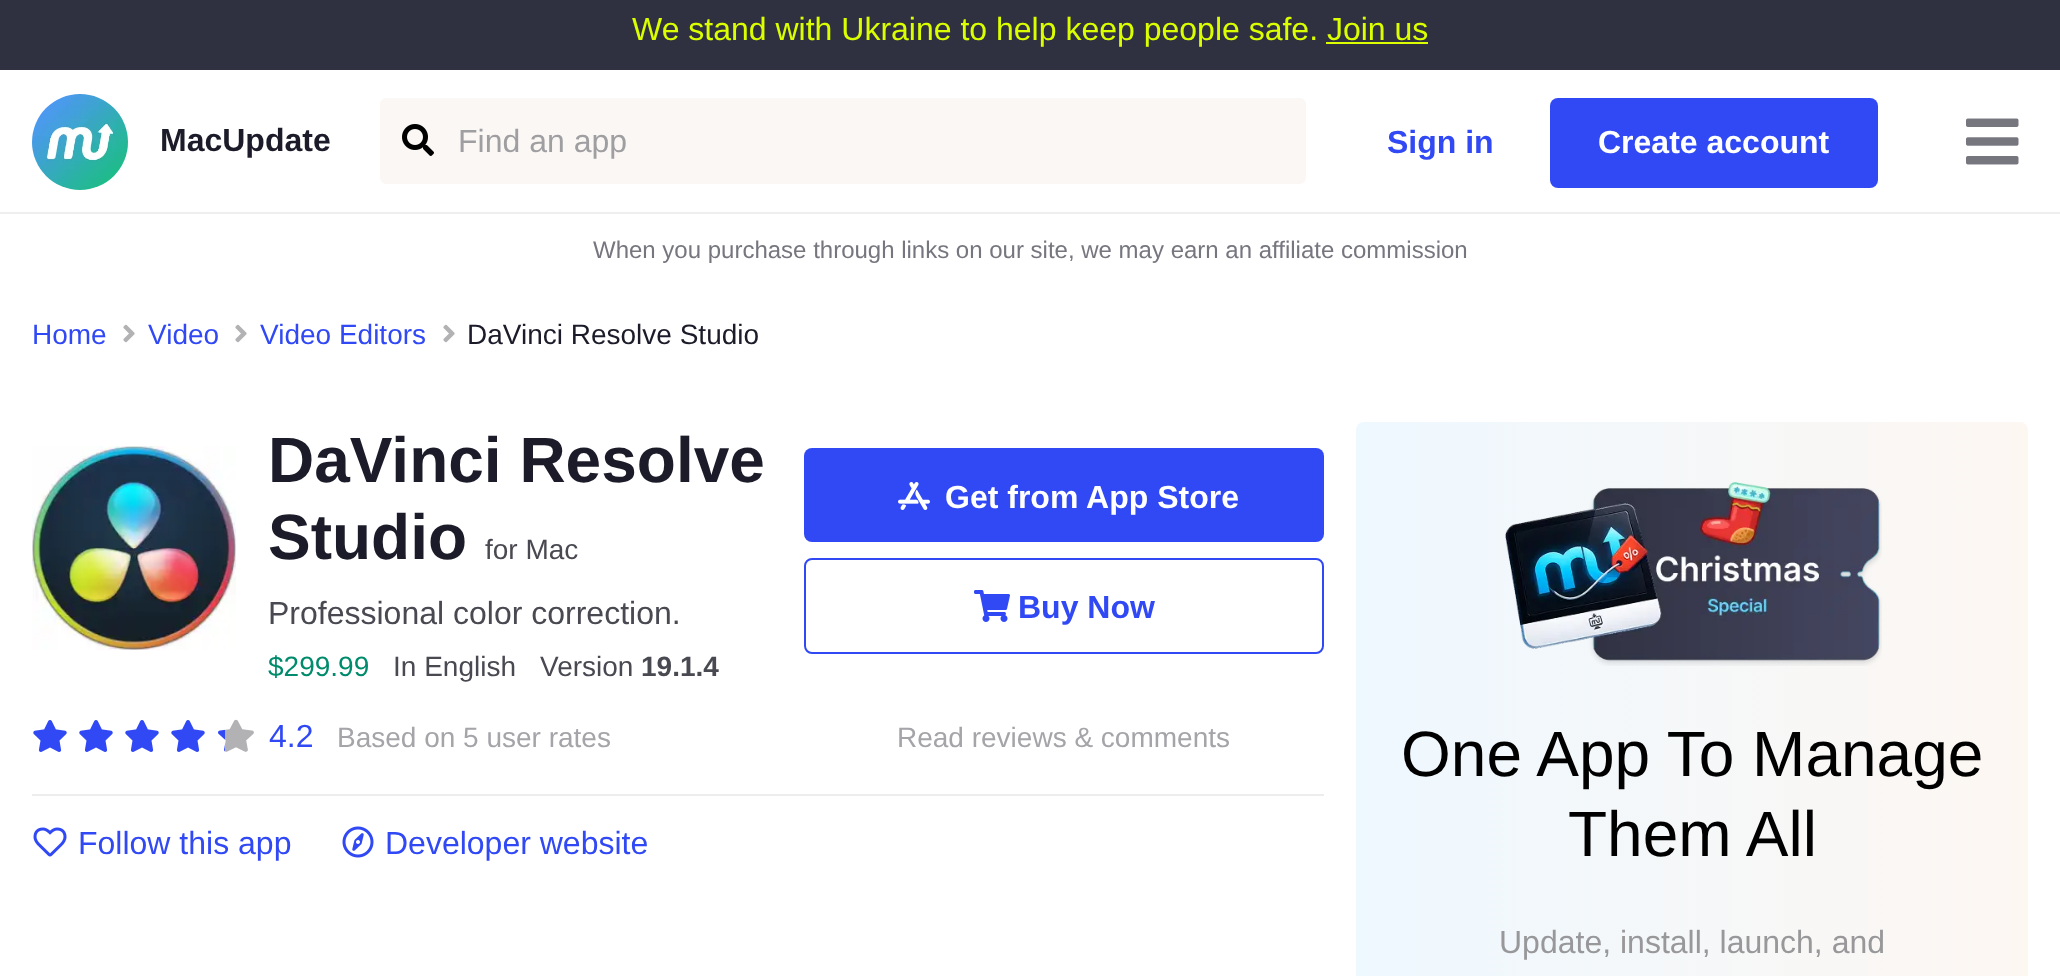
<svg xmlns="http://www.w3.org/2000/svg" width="2060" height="976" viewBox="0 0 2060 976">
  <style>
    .t1 { font: 32px Liberation Sans; fill: #dbff00; }
    .t2 { font: bold 32px Liberation Sans; fill: #1b1b29; }
    .t3 { font: 32px Liberation Sans; fill: #9f9fa2; }
    .t4 { font: bold 32px Liberation Sans; fill: #3049f4; }
    .t5 { font: bold 32px Liberation Sans; fill: #fff; }
    .t6 { font: 24px Liberation Sans; fill: #76767f; }
    .t7 { font: 28px Liberation Sans; fill: #3049f4; }
    .t8 { font: 28px Liberation Sans; fill: #1b1b29; }
    .t9 { font: bold 64px Liberation Sans; fill: #1b1b29; }
    .t10 { font: 28px Liberation Sans; fill: #494952; }
    .t11 { font: 32px Liberation Sans; fill: #494952; }
    .t12 { font: 28px Liberation Sans; fill: #008b6c; }
    .t13 { font: bold 28px Liberation Sans; fill: #494952; }
    .t14 { font: 32px Liberation Sans; fill: #3049f4; }
    .t15 { font: 28px Liberation Sans; fill: #a4a4a9; }
    .t16 { font: 64px Liberation Sans; fill: #000; }
    .t17 { font: 32px Liberation Sans; fill: #98989a; }
  </style>
  <defs>
    <linearGradient id="g1" gradientUnits="userSpaceOnUse" x1="1356" y1="814" x2="2028" y2="814"><stop offset="0" stop-color="#eef8ff"/><stop offset="1" stop-color="#fdf7f2"/></linearGradient>
  </defs>
  <rect width="100%" height="100%" fill="#fff"/>
  <rect x="0" y="0" width="2060" height="70" fill="#2f3040"/>
  <text x="632" y="40" class="t1">We stand with Ukraine to help keep people safe. Join us</text>
  <rect x="1326" y="42" width="102" height="2" fill="#dbff00"/>
  <rect x="0" y="212" width="2060" height="2" fill="#eee"/>
  <image x="32" y="94" width="96" height="96" href="images/1.png"/>
  <text x="160" y="151" class="t2">MacUpdate</text>
  <rect x="379" y="97" width="928" height="88" rx="7" fill="#fbf7f5" stroke="#fff" stroke-width="2"/>
  <image x="402" y="124" width="32" height="32" href="images/2.png"/>
  <text x="458" y="152" class="t3">Find an app</text>
  <text x="1387" y="153" class="t4">Sign in</text>
  <rect x="1550" y="98" width="328" height="90" rx="8" fill="#3049f4"/>
  <text x="1598" y="153" class="t5">Create account</text>
  <image x="1966" y="118" width="53" height="47" href="images/3.png"/>
  <text x="593" y="258" class="t6">When you purchase through links on our site, we may earn an affiliate commission</text>
  <text x="32" y="344" class="t7">Home</text>
  <image x="123" y="324" width="12" height="19" href="images/4.png"/>
  <text x="148" y="344" class="t7">Video</text>
  <image x="235" y="324" width="12" height="19" href="images/4.png"/>
  <text x="260" y="344" class="t7">Video Editors</text>
  <image x="443" y="324" width="12" height="19" href="images/4.png"/>
  <text x="467" y="344" class="t8">DaVinci Resolve Studio</text>
  <image x="32" y="446" width="204" height="204" href="images/5.png"/>
  <text x="268" y="482" class="t9">DaVinci Resolve</text>
  <text x="268" y="559" class="t9">Studio</text>
  <text x="485" y="559" class="t10">for Mac</text>
  <text x="268" y="624" class="t11">Professional color correction.</text>
  <text x="268" y="676" class="t12">$299.99</text>
  <text x="393" y="676" class="t10">In English</text>
  <text x="540" y="676" class="t10">Version</text>
  <text x="641" y="676" class="t13">19.1.4</text>
  <rect x="804" y="448" width="520" height="94" rx="8" fill="#3049f4"/>
  <image x="898" y="482" width="32" height="28" href="images/6.png"/>
  <text x="945" y="508" class="t5">Get from App Store</text>
  <rect x="805" y="559" width="518" height="94" rx="7" fill="none" stroke="#3049f4" stroke-width="2"/>
  <image x="974" y="590" width="36" height="32" href="images/7.png"/>
  <text x="1018" y="618" class="t4">Buy Now</text>
  <image x="33" y="720" width="34" height="32" href="images/8.png"/>
  <image x="79" y="720" width="34" height="32" href="images/8.png"/>
  <image x="125" y="720" width="34" height="32" href="images/8.png"/>
  <image x="171" y="720" width="34" height="32" href="images/8.png"/>
  <image x="218" y="719" width="36" height="33" href="images/9.png"/>
  <text x="269" y="747" class="t14">4.2</text>
  <text x="337" y="747" class="t15">Based on 5 user rates</text>
  <text x="897" y="747" class="t15">Read reviews &amp; comments</text>
  <rect x="32" y="794" width="1292" height="2" fill="#ededed"/>
  <image x="33" y="827" width="34" height="30" href="images/10.png"/>
  <text x="78" y="854" class="t14">Follow this app</text>
  <image x="342" y="826" width="32" height="32" href="images/11.png"/>
  <text x="385" y="854" class="t14">Developer website</text>
  <rect x="1356" y="422" width="672" height="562" rx="8" fill="url(#g1)"/>
  <image x="1505" y="482" width="377" height="184" href="images/12.png"/>
  <text x="1401" y="776" class="t16">One App To Manage</text>
  <text x="1568" y="856" class="t16">Them All</text>
  <text x="1499" y="953" class="t17">Update, install, launch, and</text>
</svg>
